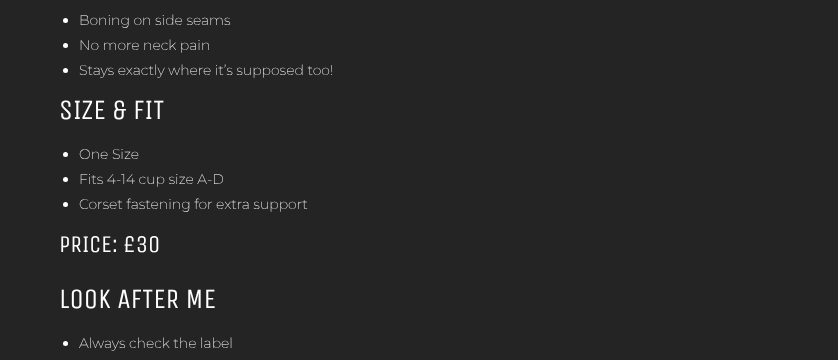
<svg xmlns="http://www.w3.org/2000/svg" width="838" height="360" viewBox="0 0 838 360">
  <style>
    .t1 { font: 200 14px Montserrat; fill: #fff; }
    .t2 { font: 28px Unica One; fill: #fff; }
    .t3 { font: 24px Unica One; fill: #fff; }
  </style>
  <rect width="100%" height="100%" fill="#242424"/>
  <circle cx="65.5" cy="20.5" r="2.5" fill="#fff"/>
  <text x="79" y="25" class="t1">Boning on side seams</text>
  <circle cx="65.5" cy="45.5" r="2.5" fill="#fff"/>
  <text x="79" y="50" class="t1">No more neck pain</text>
  <circle cx="65.5" cy="70.5" r="2.5" fill="#fff"/>
  <text x="79" y="75" class="t1">Stays exactly where it’s supposed too!</text>
  <text x="59" y="119" class="t2">SIZE &amp; FIT</text>
  <circle cx="65.5" cy="154.5" r="2.5" fill="#fff"/>
  <text x="79" y="159" class="t1">One Size</text>
  <circle cx="65.5" cy="179.5" r="2.5" fill="#fff"/>
  <text x="79" y="184" class="t1">Fits 4-14 cup size A-D</text>
  <circle cx="65.5" cy="204.5" r="2.5" fill="#fff"/>
  <text x="79" y="209" class="t1">Corset fastening for extra support</text>
  <text x="59" y="252" class="t3">PRICE: £30</text>
  <text x="59" y="308" class="t2">LOOK AFTER ME</text>
  <circle cx="65.5" cy="343.5" r="2.5" fill="#fff"/>
  <text x="79" y="348" class="t1">Always check the label</text>
</svg>
